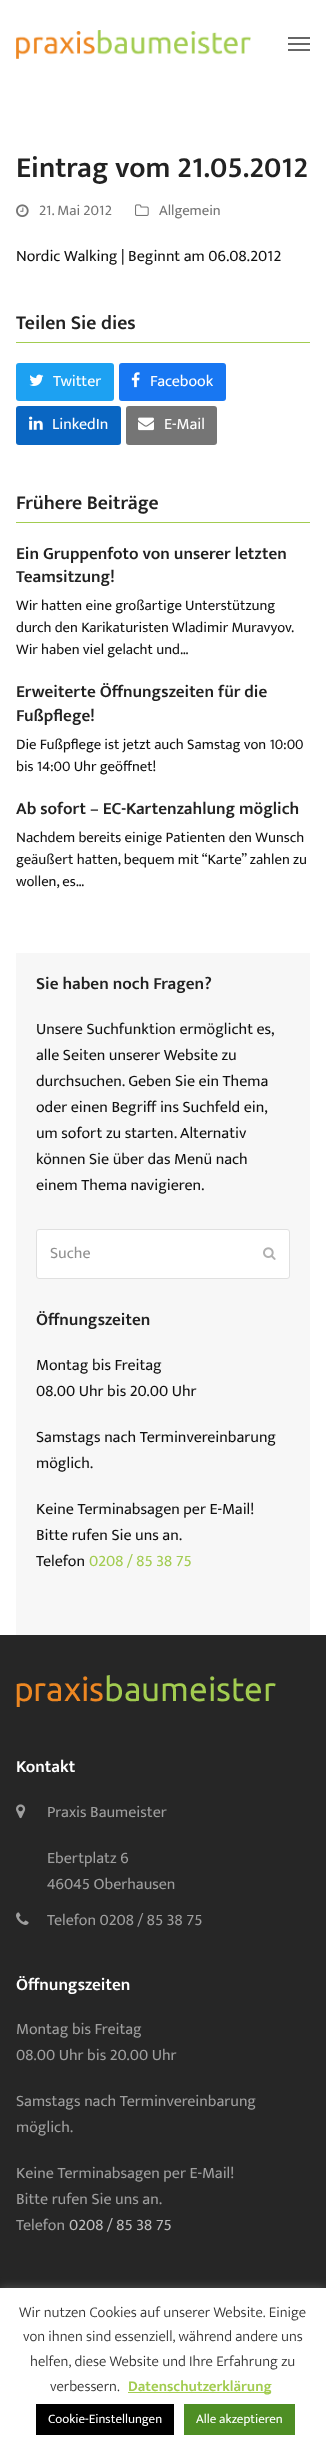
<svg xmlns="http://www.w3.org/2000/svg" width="326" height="2452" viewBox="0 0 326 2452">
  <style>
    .t1 { font: 600 29.5px Ek Mukta; fill: #222; }
    .t2 { font: 14.75px Ek Mukta; fill: #757575; }
    .t3 { font: 16px Ek Mukta; fill: #111; }
    .t4 { font: 600 19.75px Ek Mukta; fill: #222; }
    .t5 { font: 16px Ek Mukta; fill: #fff; }
    .t6 { font: 600 17.25px Ek Mukta; fill: #222; }
    .t7 { font: 14.75px Ek Mukta; fill: #111; }
    .t8 { font: 16px Ek Mukta; fill: #909090; }
    .t9 { font: 16px Ek Mukta; fill: #a2cc50; }
    .t10 { font: 600 17.25px Ek Mukta; fill: #fff; }
    .t11 { font: 16px Ek Mukta; fill: #9e9e9e; }
    .t12 { font: 16px Ek Mukta; fill: #bdbdbd; }
    .t13 { font: 300 15px Ek Mukta; fill: #333; }
    .t14 { font: 600 15px Ek Mukta; fill: #a2cc50; }
    .t15 { font: 13px Ek Mukta; fill: #fff; }
  </style>
  <rect width="100%" height="100%" fill="#fff"/>
  <image x="16" y="30" width="235" height="29" href="images/1.png"/>
  <rect x="288" y="43" width="22" height="2" fill="#666"/>
  <rect x="288" y="37" width="22" height="2" fill="#666"/>
  <rect x="288" y="49" width="22" height="2" fill="#666"/>
  <text x="16" y="177" class="t1">Eintrag vom 21.05.2012</text>
  <image x="16" y="204" width="13" height="13" href="images/2.png"/>
  <text x="39" y="215" class="t2">21. Mai 2012</text>
  <image x="135" y="204" width="14" height="12" href="images/3.png"/>
  <text x="159" y="215" class="t2">Allgemein</text>
  <text x="16" y="261" class="t3">Nordic Walking | Beginnt am 06.08.2012</text>
  <rect x="16" y="342" width="294" height="1" fill="#a2cc50"/>
  <text x="16" y="329" class="t4">Teilen Sie dies</text>
  <rect x="16" y="363" width="98" height="38" rx="3" fill="#1da1f2"/>
  <image x="29" y="374" width="15" height="12" href="images/4.png"/>
  <text x="53" y="386" class="t5">Twitter</text>
  <rect x="119" y="363" width="107" height="38" rx="3" fill="#1877f2"/>
  <image x="131" y="372" width="9" height="16" href="images/5.png"/>
  <text x="150" y="386" class="t5">Facebook</text>
  <rect x="16" y="406" width="105" height="39" rx="3" fill="#0a66c2"/>
  <image x="29" y="416" width="14" height="14" href="images/6.png"/>
  <text x="52" y="429" class="t5">LinkedIn</text>
  <rect x="126" y="406" width="91" height="39" rx="3" fill="#757575"/>
  <image x="138" y="417" width="16" height="14" href="images/7.png"/>
  <text x="164" y="429" class="t5">E-Mail</text>
  <rect x="16" y="522" width="294" height="1" fill="#a2cc50"/>
  <text x="16" y="509" class="t4">Frühere Beiträge</text>
  <text x="16" y="559" class="t6">Ein Gruppenfoto von unserer letzten</text>
  <text x="16" y="582" class="t6">Teamsitzung!</text>
  <text x="16" y="610" class="t7">Wir hatten eine großartige Unterstützung</text>
  <text x="16" y="632" class="t7">durch den Karikaturisten Wladimir Muravyov.</text>
  <text x="16" y="654" class="t7">Wir haben viel gelacht und…</text>
  <text x="16" y="697" class="t6">Erweiterte Öffnungszeiten für die</text>
  <text x="16" y="721" class="t6">Fußpflege!</text>
  <text x="16" y="749" class="t7">Die Fußpflege ist jetzt auch Samstag von 10:00</text>
  <text x="16" y="771" class="t7">bis 14:00 Uhr geöffnet!</text>
  <text x="16" y="814" class="t6">Ab sofort – EC-Kartenzahlung möglich</text>
  <text x="16" y="842" class="t7">Nachdem bereits einige Patienten den Wunsch</text>
  <text x="16" y="864" class="t7">geäußert hatten, bequem mit “Karte” zahlen zu</text>
  <text x="16" y="886" class="t7">wollen, es…</text>
  <rect x="16" y="953" width="294" height="682" fill="#f7f7f7"/>
  <text x="36" y="989" class="t6">Sie haben noch Fragen?</text>
  <text x="36" y="1034" class="t3">Unsere Suchfunktion ermöglicht es,</text>
  <text x="36" y="1060" class="t3">alle Seiten unserer Website zu</text>
  <text x="36" y="1086" class="t3">durchsuchen. Geben Sie ein Thema</text>
  <text x="36" y="1112" class="t3">oder einen Begriff ins Suchfeld ein,</text>
  <text x="36" y="1138" class="t3">um sofort zu starten. Alternativ</text>
  <text x="36" y="1164" class="t3">können Sie über das Menü nach</text>
  <text x="36" y="1190" class="t3">einem Thema navigieren.</text>
  <rect x="36.5" y="1229.5" width="253" height="49" rx="2.5" fill="#fff" stroke="#e0e0e0"/>
  <text x="50" y="1258" class="t8">Suche</text>
  <image x="263" y="1247" width="13" height="13" href="images/8.png"/>
  <text x="36" y="1325" class="t6">Öffnungszeiten</text>
  <text x="36" y="1370" class="t3">Montag bis Freitag</text>
  <text x="36" y="1396" class="t3">08.00 Uhr bis 20.00 Uhr</text>
  <text x="36" y="1442" class="t3">Samstags nach Terminvereinbarung</text>
  <text x="36" y="1468" class="t3">möglich.</text>
  <text x="36" y="1514" class="t3">Keine Terminabsagen per E-Mail!</text>
  <text x="36" y="1540" class="t3">Bitte rufen Sie uns an.</text>
  <text x="36" y="1566" class="t3">Telefon</text>
  <text x="89" y="1566" class="t9">0208 / 85 38 75</text>
  <rect x="0" y="1635" width="326" height="653" fill="#262626"/>
  <image x="16" y="1675" width="260" height="32" href="images/9.png"/>
  <text x="16" y="1772" class="t10">Kontakt</text>
  <image x="16" y="1804" width="10" height="15" href="images/10.png"/>
  <text x="47" y="1817" class="t11">Praxis Baumeister</text>
  <text x="47" y="1863" class="t11">Ebertplatz 6</text>
  <text x="47" y="1889" class="t11">46045 Oberhausen</text>
  <image x="16" y="1912" width="13" height="13" href="images/11.png"/>
  <text x="47" y="1925" class="t11">Telefon 0208 / 85 38 75</text>
  <text x="16" y="1990" class="t10">Öffnungszeiten</text>
  <text x="16" y="2034" class="t11">Montag bis Freitag</text>
  <text x="16" y="2060" class="t11">08.00 Uhr bis 20.00 Uhr</text>
  <text x="16" y="2106" class="t11">Samstags nach Terminvereinbarung</text>
  <text x="16" y="2132" class="t11">möglich.</text>
  <text x="16" y="2178" class="t11">Keine Terminabsagen per E-Mail!</text>
  <text x="16" y="2204" class="t11">Bitte rufen Sie uns an.</text>
  <text x="16" y="2230" class="t11">Telefon</text>
  <text x="69" y="2230" class="t12">0208 / 85 38 75</text>
  <rect x="0" y="2287" width="326" height="164" fill="#acabab4d" filter="blur(5px)"/>
  <rect x="0" y="2288" width="326" height="164" fill="#fff"/>
  <text x="19" y="2317" class="t13">Wir nutzen Cookies auf unserer Website. Einige</text>
  <text x="23" y="2341" class="t13">von ihnen sind essenziell, während andere uns</text>
  <text x="30" y="2366" class="t13">helfen, diese Website und Ihre Erfahrung zu</text>
  <text x="50" y="2391" class="t13">verbessern.</text>
  <rect x="128" y="2392" width="143" height="1" fill="#a2cc50"/>
  <text x="128" y="2391" class="t14">Datenschutzerklärung</text>
  <rect x="36" y="2404" width="138" height="31" fill="#000"/>
  <text x="48" y="2423" class="t15">Cookie-Einstellungen</text>
  <rect x="184" y="2404" width="111" height="31" fill="#4e8e24"/>
  <text x="196" y="2423" class="t15">Alle akzeptieren</text>
</svg>
